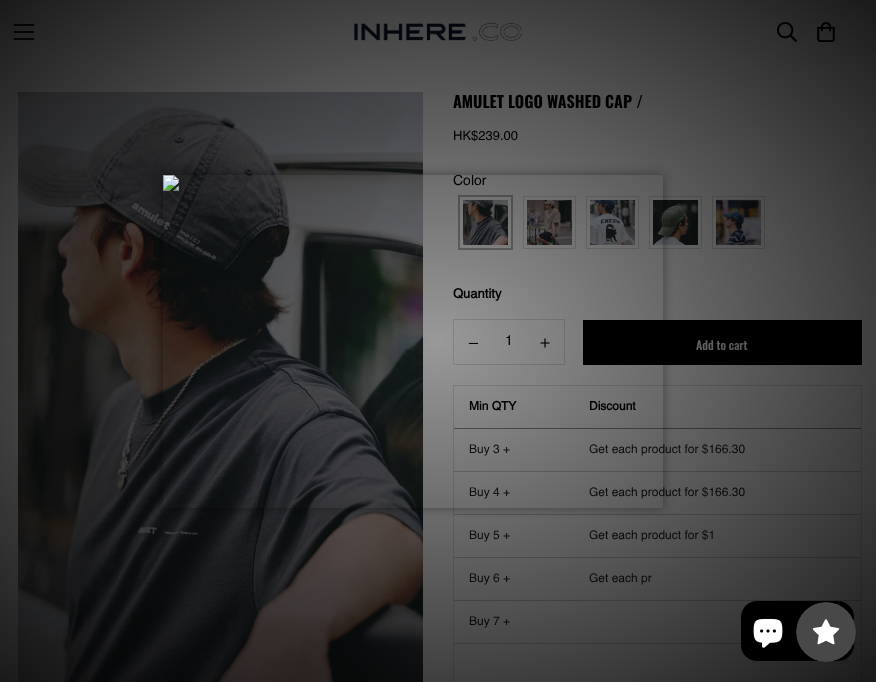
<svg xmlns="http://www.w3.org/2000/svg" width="876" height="682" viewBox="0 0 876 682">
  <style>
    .t1 { font: bold 16px Oswald; fill: #000; }
    .t2 { font: 13px Helvetica; fill: #000; }
    .t3 { font: 14px Helvetica; fill: #000; }
    .t4 { font: bold 13px Helvetica; fill: #000; }
    .t5 { font: 500 12px Oswald; fill: #fff; }
    .t6 { font: bold 12px Helvetica; fill: #000; }
    .t7 { font: 12px Helvetica; fill: #202223; }
  </style>
  <defs>
    <radialGradient id="g1" gradientUnits="userSpaceOnUse" cx="0" cy="0" r="1" gradientTransform="matrix(619 0 0 482 438 341)"><stop offset="0" stop-color="#000" stop-opacity="0.4"/><stop offset="1" stop-color="#000" stop-opacity="0.9"/></radialGradient>
    <clipPath id="clip1"><path d="M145 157H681V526H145ZM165 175H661C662 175 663 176 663 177V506C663 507 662 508 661 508H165C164 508 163 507 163 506V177C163 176 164 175 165 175Z" clip-rule="evenodd"/></clipPath>
  </defs>
  <rect width="100%" height="100%" fill="#fff"/>
  <rect x="14" y="31" width="20" height="2" fill="#222"/>
  <rect x="14" y="24" width="20" height="2" fill="#222"/>
  <rect x="14" y="38" width="20" height="2" fill="#222"/>
  <image x="354" y="23" width="168" height="18" href="images/2.png"/>
  <image x="777" y="22" width="20" height="20" href="images/3.png"/>
  <image x="817" y="22" width="18" height="20" href="images/4.png"/>
  <image x="18" y="92" width="405" height="590" href="images/5.png"/>
  <text x="453" y="108" class="t1">AMULET LOGO WASHED CAP /</text>
  <text x="453" y="140" class="t2">HK$239.00</text>
  <text x="453" y="185" class="t3">Color</text>
  <rect x="459" y="196" width="53" height="53" fill="none" stroke="#b3b3b3" stroke-width="2"/>
  <image x="463" y="200" width="45" height="45" href="images/6.png"/>
  <rect x="523.5" y="196.5" width="52" height="52" fill="none" stroke="#dedede"/>
  <image x="527" y="200" width="45" height="45" href="images/7.png"/>
  <rect x="586.5" y="196.5" width="52" height="52" fill="none" stroke="#dedede"/>
  <image x="590" y="200" width="45" height="45" href="images/8.png"/>
  <rect x="649.5" y="196.5" width="52" height="52" fill="none" stroke="#dedede"/>
  <image x="653" y="200" width="45" height="45" href="images/9.png"/>
  <rect x="712.5" y="196.5" width="52" height="52" fill="none" stroke="#dedede"/>
  <image x="716" y="199" width="45" height="46" href="images/10.png"/>
  <text x="453" y="298" class="t4">Quantity</text>
  <rect x="453.5" y="319.5" width="111" height="45" fill="none" stroke="#dedede"/>
  <image x="468" y="342" width="10" height="2" href="images/11.png"/>
  <text x="505" y="345" class="t3">1</text>
  <image x="540" y="338" width="10" height="10" href="images/12.png"/>
  <rect x="583" y="320" width="279" height="45" fill="#000"/>
  <text x="696" y="350" class="t5">Add to cart</text>
  <rect x="453.5" y="385.5" width="408" height="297" fill="none" stroke="#dedede"/>
  <text x="469" y="410" class="t6">Min QTY</text>
  <rect x="454" y="428" width="407" height="1" fill="#8c9196"/>
  <text x="589" y="410" class="t6">Discount</text>
  <text x="469" y="453" class="t7">Buy 3 +</text>
  <rect x="454" y="471" width="407" height="1" fill="#c9cccf"/>
  <text x="589" y="453" class="t7">Get each product for $166.30</text>
  <text x="469" y="496" class="t7">Buy 4 +</text>
  <rect x="454" y="514" width="407" height="1" fill="#c9cccf"/>
  <text x="589" y="496" class="t7">Get each product for $166.30</text>
  <text x="469" y="539" class="t7">Buy 5 +</text>
  <rect x="454" y="557" width="407" height="1" fill="#c9cccf"/>
  <text x="589" y="539" class="t7">Get each product for $1</text>
  <text x="469" y="582" class="t7">Buy 6 +</text>
  <rect x="454" y="600" width="407" height="1" fill="#c9cccf"/>
  <text x="589" y="582" class="t7">Get each pr</text>
  <text x="469" y="625" class="t7">Buy 7 +</text>
  <rect x="454" y="643" width="407" height="1" fill="#c9cccf"/>
  <rect x="0" y="0" width="876" height="682" fill="url(#g1)"/>
  <g clip-path="url(#clip1)">
    <rect x="163" y="175" width="500" height="333" rx="2" fill="#00000066" filter="blur(5.5px)"/>
  </g>
  <image x="163" y="175" width="16" height="16" href="images/1.png"/>
  <rect x="741" y="601" width="113" height="60" rx="16" fill="#000"/>
  <image x="753" y="619" width="30" height="29" href="images/13.png"/>
  <image x="796" y="602" width="60" height="60" href="images/14.png"/>
</svg>
